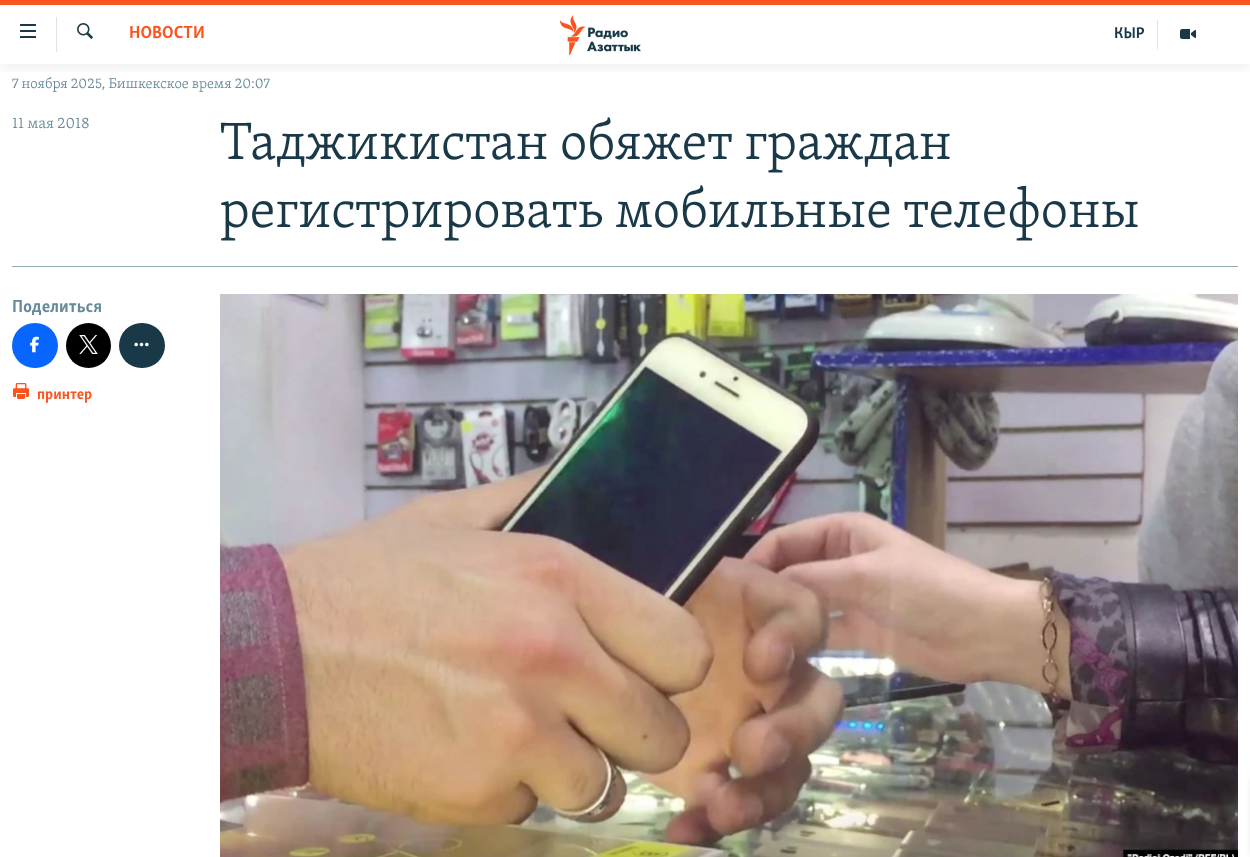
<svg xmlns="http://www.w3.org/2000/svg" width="1250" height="857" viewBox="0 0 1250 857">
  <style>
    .t1 { font: bold 18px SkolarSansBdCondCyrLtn; fill: #fa5420; }
    .t2 { font: bold 16px SkolarSansBdCondCyrLtn; fill: #1a3948; }
    .t3 { font: 300 14.6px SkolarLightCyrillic; fill: #678a9b; }
    .t4 { font: 300 15.75px SkolarLightCyrillic; fill: #678a9b; }
    .t5 { font: 300 54px SkolarLightCyrillic; fill: #1a3948; }
    .t6 { font: bold 18px SkolarSansBdCondCyrLtn; fill: #678a9b; }
    .t7 { font: bold 15.75px SkolarSansBdCondCyrLtn; fill: #fa5420; }
  </style>
  <defs>
    <clipPath id="clip1"><rect x="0" y="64" width="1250" height="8"/></clipPath>
  </defs>
  <rect width="100%" height="100%" fill="#fff"/>
  <g clip-path="url(#clip1)">
    <rect x="0" y="0" width="1250" height="64" fill="#0000001a" filter="blur(10px)"/>
  </g>
  <rect x="0" y="0" width="1250" height="5" fill="#fa5420"/>
  <image x="20" y="24" width="16" height="14" href="images/1.png"/>
  <rect x="56" y="17" width="1" height="35" fill="#dce4e8"/>
  <image x="77" y="23" width="16" height="16" href="images/2.png"/>
  <text x="129" y="38" class="t1">НОВОСТИ</text>
  <image x="560" y="15" width="81" height="40" href="images/3.png"/>
  <rect x="1157" y="20" width="1" height="29" fill="#dce4e8"/>
  <text x="1114" y="38" class="t2">КЫР</text>
  <image x="1180" y="29" width="16" height="10" href="images/4.png"/>
  <text x="12" y="88" class="t3">7 ноября 2025, Бишкекское время 20:07</text>
  <text x="12" y="128" class="t4">11 мая 2018</text>
  <text x="220" y="159" class="t5">Таджикистан обяжет граждан</text>
  <text x="220" y="227" class="t5">регистрировать мобильные телефоны</text>
  <rect x="12" y="266" width="1226" height="1" fill="#95adb9"/>
  <text x="12" y="312" class="t6">Поделиться</text>
  <rect x="12" y="323" width="46" height="45" rx="22.5" fill="#0866ff"/>
  <image x="30" y="336" width="9" height="17" href="images/5.png"/>
  <circle cx="88.5" cy="345.5" r="22.5" fill="#000"/>
  <image x="79" y="335" width="19" height="19" href="images/6.png"/>
  <rect x="119" y="323" width="46" height="45" rx="22.5" fill="#1a3948"/>
  <image x="134" y="342" width="15" height="5" href="images/7.png"/>
  <image x="13" y="383" width="16" height="16" href="images/8.png"/>
  <text x="37" y="399" class="t7">принтер</text>
  <image x="220" y="294" width="1018" height="563" href="images/9.png"/>
  <rect x="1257" y="779" width="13" height="78" rx="5" fill="#000000d9" filter="blur(5px)"/>
</svg>
